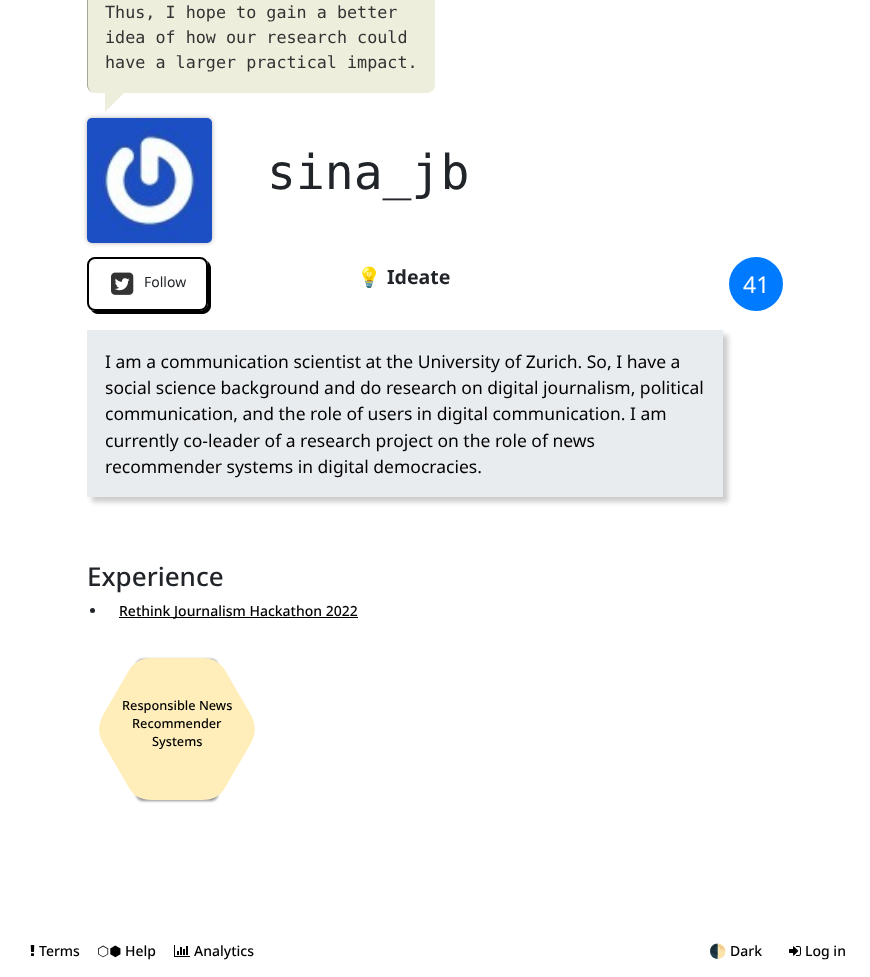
<svg xmlns="http://www.w3.org/2000/svg" width="870" height="977" viewBox="0 0 870 977">
  <style>
    .t1 { font: 16.75px DejaVu Sans Mono; fill: #333; }
    .t2 { font: 48px DejaVu Sans Mono; fill: #212529; }
    .t3 { font: 14px Noto Sans; fill: #212529; }
    .t4 { font: bold 19.5px Noto Color Emoji; fill: #212529; }
    .t5 { font: bold 19.5px Noto Sans; fill: #212529; }
    .t6 { font: 23px Noto Sans; fill: #fff; }
    .t7 { font: 17.5px Noto Sans; fill: #000; }
    .t8 { font: 500 26px Noto Sans; fill: #212529; }
    .t9 { font: 500 14px Noto Sans; fill: #000; }
    .t10 { font: 500 12.75px Noto Sans; fill: #000; }
    .t11 { font: 14px DejaVu Sans; fill: #000; }
    .t12 { font: 14px Noto Color Emoji; fill: #000; }
  </style>
  <rect width="100%" height="100%" fill="#fff"/>
  <rect x="87" y="-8" width="348" height="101" rx="8" fill="#eed"/>
  <path d="M95-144H427C431-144 435-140 435-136V85C435 89 431 93 427 93H95C91 93 87 89 87 85V-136C87-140 91-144 95-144ZM95-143H427C431-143 435-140 435-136V85C435 89 431 93 427 93H95C91 93 88 89 88 85V-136C88-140 91-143 95-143Z" fill="#0000004d" fill-rule="evenodd"/>
  <text x="105" y="18" class="t1">Thus, I hope to gain a better</text>
  <text x="105" y="43" class="t1">idea of how our research could</text>
  <text x="105" y="68" class="t1">have a larger practical impact.</text>
  <rect x="87" y="118" width="125" height="125" rx="5" fill="#0000004d" filter="blur(2.5px)"/>
  <path d="M105 92H125L105 112Z" fill="#eed"/>
  <image x="87" y="118" width="125" height="125" href="images/1.png"/>
  <text x="267" y="189" class="t2">sina_jb</text>
  <path d="M91 310C92 312 95 314 98 314H203C207 314 211 310 211 306V268C211 265 209 262 207 261C208 262 208 264 208 265V303C208 307 204 311 200 311H95C94 311 92 311 91 310Z" fill="#000"/>
  <rect x="88" y="258" width="119" height="52" rx="7" fill="none" stroke="#000" stroke-width="2"/>
  <image x="111" y="272" width="23" height="23" href="images/2.png"/>
  <text x="144" y="287" class="t3">Follow</text>
  <text x="357" y="284" class="t4">💡</text>
  <text x="387" y="284" class="t5">Ideate</text>
  <circle cx="756" cy="284" r="27" fill="#007bff"/>
  <text x="743" y="293" class="t6">41</text>
  <rect x="92" y="335" width="636" height="167" fill="#00000033" filter="blur(2.5px)"/>
  <rect x="87" y="330" width="636" height="167" fill="#e9ecef"/>
  <text x="105" y="368" class="t7">I am a communication scientist at the University of Zurich. So, I have a</text>
  <text x="105" y="394" class="t7">social science background and do research on digital journalism, political</text>
  <text x="105" y="420" class="t7">communication, and the role of users in digital communication. I am</text>
  <text x="105" y="447" class="t7">currently co-leader of a research project on the role of news</text>
  <text x="105" y="473" class="t7">recommender systems in digital democracies.</text>
  <text x="87" y="586" class="t8">Experience</text>
  <circle cx="92.5" cy="610.5" r="2.5" fill="#212529"/>
  <rect x="119" y="617" width="239" height="1" fill="#000"/>
  <text x="119" y="616" class="t9">Rethink Journalism Hackathon 2022</text>
  <rect x="136" y="659" width="82" height="142" rx="7" fill="#0000004d" filter="blur(1px)"/>
  <rect x="136" y="659" width="82" height="142" rx="7" fill="#00000026" filter="blur(1.5px)"/>
  <path d="M152 658H202C211 658 218 661 218 665V793C218 797 211 800 202 800H152C143 800 136 797 136 793V665C136 661 143 658 152 658Z" fill="#ffeeba"/>
  <path d="M103 715L128 672C132 664 139 660 142 662L253 726C256 728 255 735 251 743L226 786C222 794 215 799 212 797L101 733C98 731 99 723 103 715Z" fill="#ffeeba"/>
  <path d="M226 672L251 715C255 723 256 731 253 733L142 797C139 799 132 794 128 786L103 743C99 735 98 728 101 726L212 662C215 660 222 664 226 672Z" fill="#ffeeba"/>
  <text x="122" y="710" class="t10">Responsible News</text>
  <text x="132" y="728" class="t10">Recommender</text>
  <text x="152" y="746" class="t10">Systems</text>
  <image x="30" y="945" width="5" height="11" href="images/3.png"/>
  <text x="39" y="956" class="t9">Terms</text>
  <text x="97" y="956" class="t11">⬡⬢</text>
  <text x="125" y="956" class="t9">Help</text>
  <image x="174" y="945" width="16" height="12" href="images/4.png"/>
  <text x="194" y="956" class="t9">Analytics</text>
  <text x="709" y="956" class="t12">🌓</text>
  <text x="730" y="956" class="t9">Dark</text>
  <image x="789" y="946" width="12" height="10" href="images/5.png"/>
  <text x="805" y="956" class="t9">Log in</text>
</svg>
